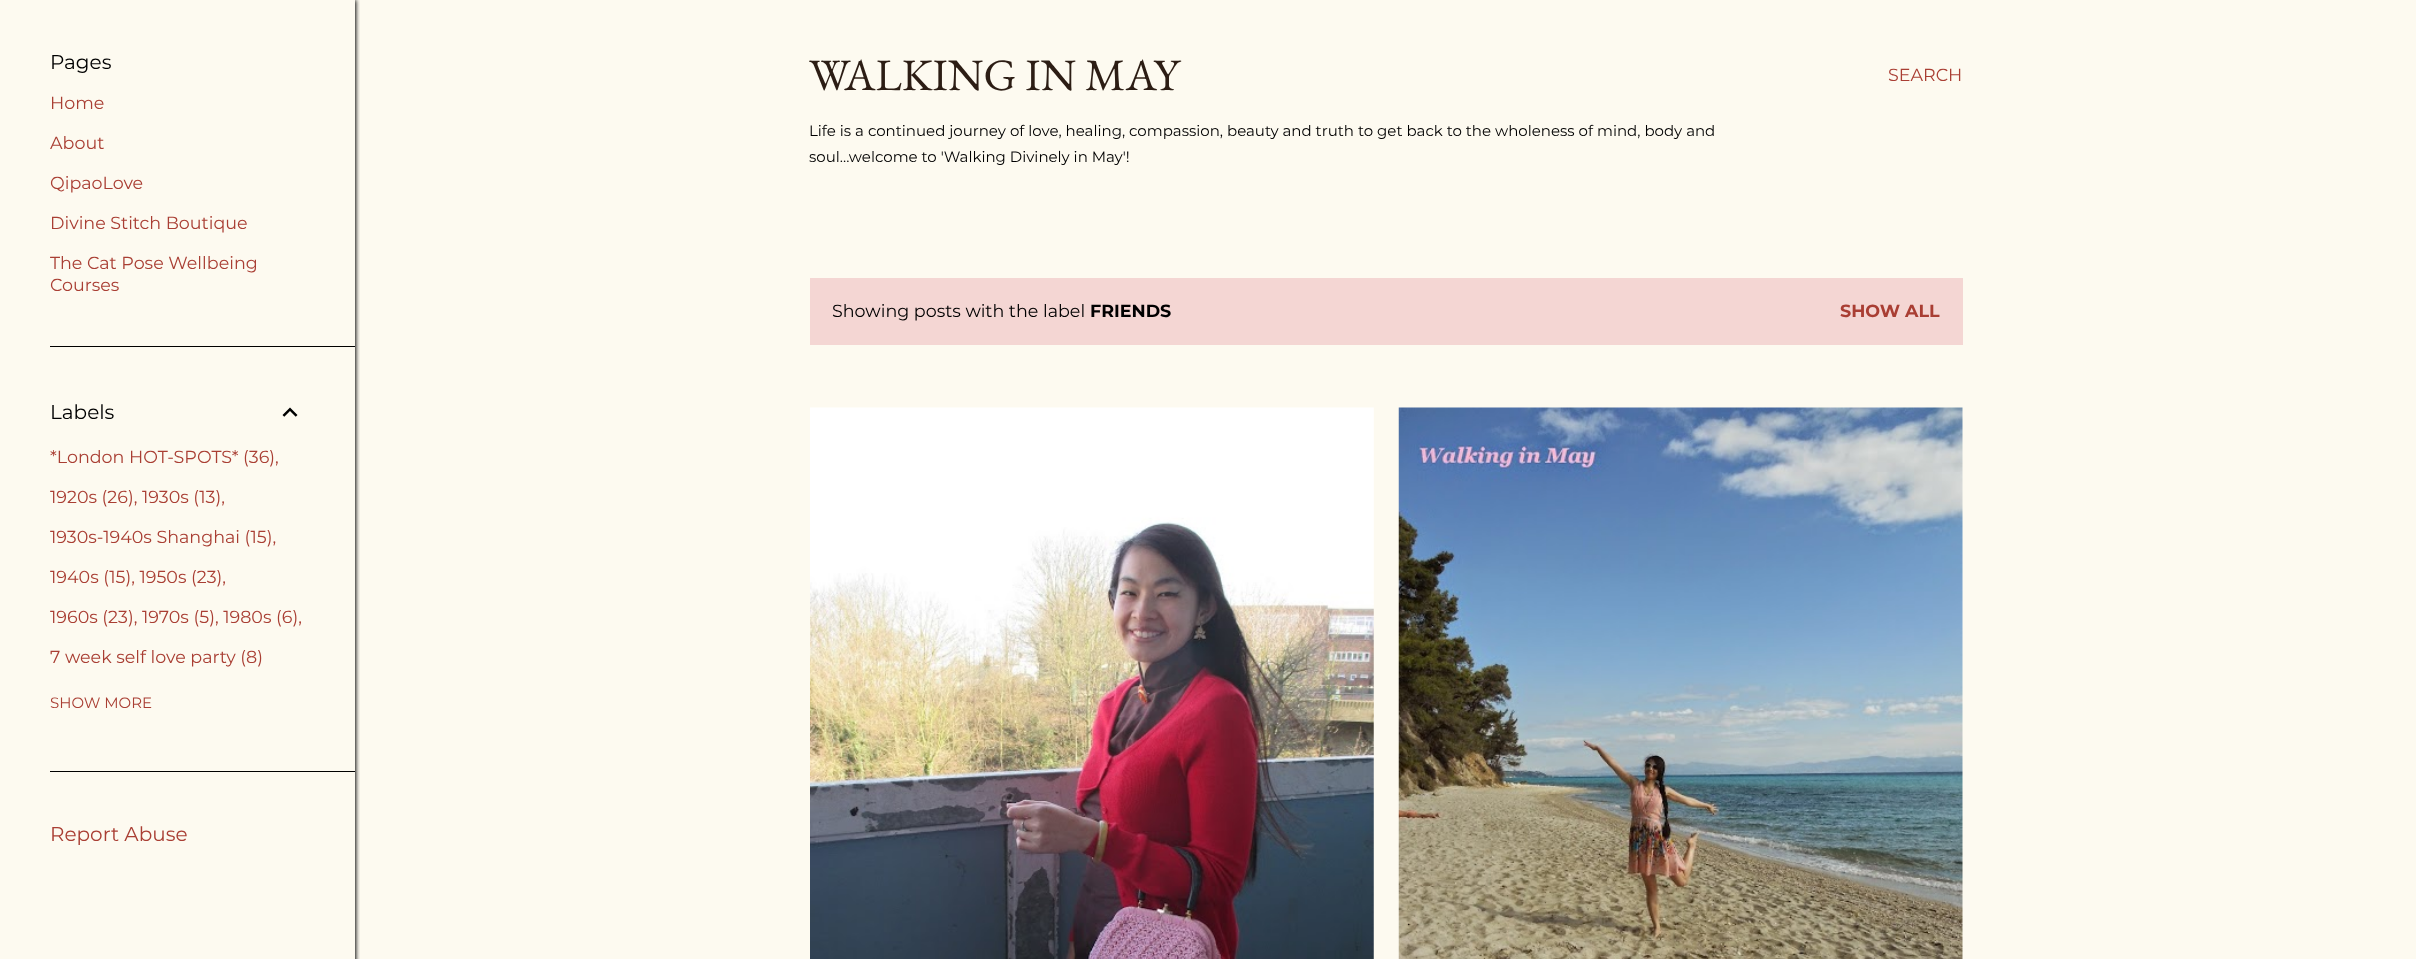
<svg xmlns="http://www.w3.org/2000/svg" width="2416" height="959" viewBox="0 0 2416 959">
  <style>
    .t1 { font: 20px Montserrat; fill: #000; }
    .t2 { font: 17.5px Montserrat; fill: #a93e33; }
    .t3 { font: 15px Montserrat; fill: #a93e33; }
    .t4 { font: 20px Montserrat; fill: #a93e33; }
    .t5 { font: 45px EB Garamond; fill: #2c1d14; }
    .t6 { font: 15px Montserrat; fill: #000; }
    .t7 { font: 17.5px Montserrat; fill: #000; }
    .t8 { font: bold 17.5px Montserrat; fill: #000; }
    .t9 { font: bold 17.5px Montserrat; fill: #a93e33; }
  </style>
  <defs>
    <clipPath id="clip1"><rect x="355" y="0" width="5" height="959"/></clipPath>
  </defs>
  <rect width="100%" height="100%" fill="#fdfaf0"/>
  <g clip-path="url(#clip1)">
    <rect x="1" y="0" width="355" height="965" fill="#000" filter="blur(2px)"/>
  </g>
  <text x="50" y="69" class="t1">Pages</text>
  <text x="50" y="109" class="t2">Home</text>
  <text x="50" y="149" class="t2">About</text>
  <text x="50" y="189" class="t2">QipaoLove</text>
  <text x="50" y="229" class="t2">Divine Stitch Boutique</text>
  <text x="50" y="269" class="t2">The Cat Pose Wellbeing</text>
  <text x="50" y="291" class="t2">Courses</text>
  <rect x="50" y="346" width="305" height="1" fill="#000"/>
  <text x="50" y="419" class="t1">Labels</text>
  <image x="282" y="407" width="16" height="10" href="images/1.png"/>
  <text x="50" y="463" class="t2">*London HOT-SPOTS* (36),</text>
  <text x="50" y="503" class="t2">1920s (26), 1930s (13),</text>
  <text x="50" y="543" class="t2">1930s-1940s Shanghai (15),</text>
  <text x="50" y="583" class="t2">1940s (15), 1950s (23),</text>
  <text x="50" y="623" class="t2">1960s (23), 1970s (5), 1980s (6),</text>
  <text x="50" y="663" class="t2">7 week self love party (8)</text>
  <text x="50" y="708" class="t3">SHOW MORE</text>
  <rect x="50" y="771" width="305" height="1" fill="#000"/>
  <text x="50" y="841" class="t4">Report Abuse</text>
  <text x="809" y="90" class="t5">WALKING IN MAY</text>
  <text x="809" y="136" class="t6">Life is a continued journey of love, healing, compassion, beauty and truth to get back to the wholeness of mind, body and</text>
  <text x="809" y="162" class="t6">soul...welcome to 'Walking Divinely in May'!</text>
  <text x="1888" y="81" class="t2">SEARCH</text>
  <rect x="810" y="278" width="1153" height="67" fill="#f4d6d3"/>
  <text x="832" y="317" class="t7">Showing posts with the label</text>
  <text x="1090" y="317" class="t8">FRIENDS</text>
  <text x="1840" y="317" class="t9">SHOW ALL</text>
  <image x="810" y="407" width="564" height="552" href="images/2.png"/>
  <image x="1398" y="407" width="565" height="552" href="images/3.png"/>
</svg>
